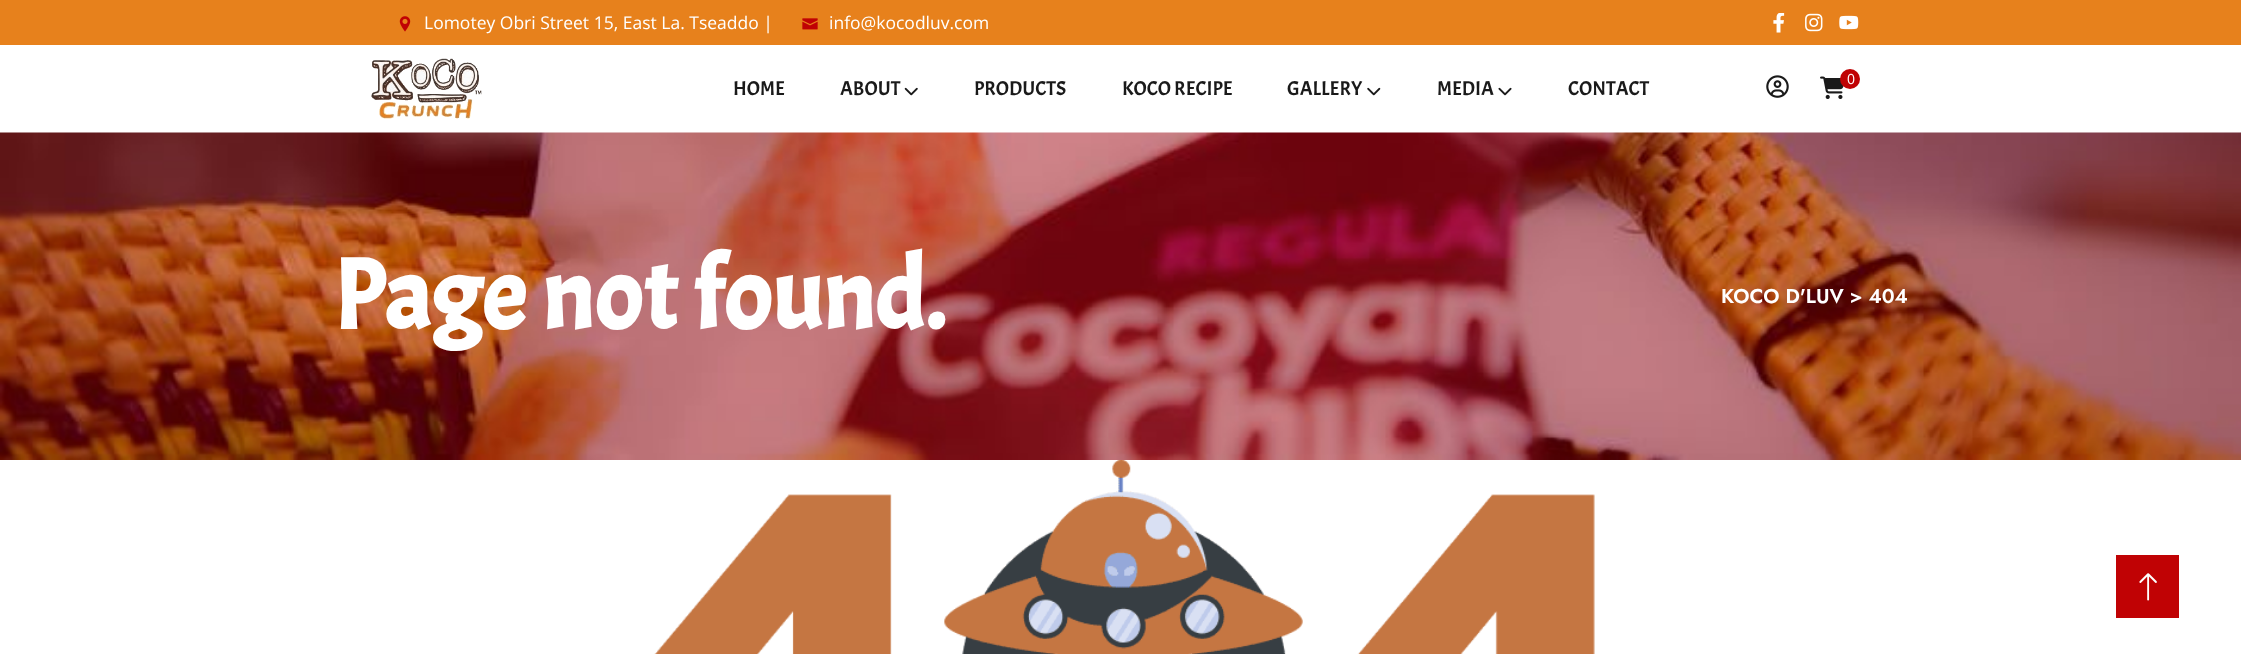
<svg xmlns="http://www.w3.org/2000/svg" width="2241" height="654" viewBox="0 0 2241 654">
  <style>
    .t1 { font: 17.5px Open Sans; fill: #fff; }
    .t2 { font: 14px Open Sans; fill: #fff; }
    .t3 { font: 20px Acme; fill: #1a1a1a; }
    .t4 { font: bold 100px Acme; fill: #fff; }
    .t5 { font: 600 20px Jost; fill: #fff; }
  </style>
  <rect width="100%" height="100%" fill="#fff"/>
  <rect x="0" y="0" width="2241" height="45" fill="#e7811c"/>
  <image x="399" y="16" width="12" height="16" href="images/1.png"/>
  <text x="424" y="29" class="t1">Lomotey Obri Street 15, East La. Tseaddo |</text>
  <image x="802" y="18" width="16" height="12" href="images/2.png"/>
  <text x="829" y="29" class="t1">info@kocodluv.com</text>
  <image x="1773" y="13" width="12" height="20" href="images/3.png"/>
  <image x="1805" y="13" width="18" height="19" href="images/4.png"/>
  <image x="1839" y="15" width="20" height="15" href="images/5.png"/>
  <image x="371" y="58" width="111" height="61" href="images/6.png"/>
  <image x="1766" y="75" width="23" height="23" href="images/7.png"/>
  <image x="1820" y="76" width="24" height="23" href="images/8.png"/>
  <circle cx="1850" cy="79" r="10" fill="#c00204"/>
  <text x="1847" y="84" class="t2">0</text>
  <text x="733" y="95" class="t3">HOME</text>
  <text x="840" y="95" class="t3">ABOUT</text>
  <image x="904" y="87" width="14" height="9" href="images/9.png"/>
  <text x="974" y="95" class="t3">PRODUCTS</text>
  <text x="1122" y="95" class="t3">KOCO RECIPE</text>
  <text x="1287" y="95" class="t3">GALLERY</text>
  <image x="1367" y="87" width="14" height="9" href="images/10.png"/>
  <text x="1437" y="95" class="t3">MEDIA</text>
  <image x="1498" y="87" width="14" height="9" href="images/11.png"/>
  <text x="1568" y="95" class="t3">CONTACT</text>
  <image x="0" y="132" width="2241" height="328" href="images/12.png"/>
  <text x="333" y="329" class="t4">Page not found.</text>
  <text x="1721" y="303" class="t5">KOCO D'LUV &gt; 404</text>
  <image x="654" y="460" width="941" height="194" href="images/13.png"/>
  <rect x="2116" y="555" width="63" height="63" fill="#c00204"/>
  <image x="2139" y="573" width="18" height="28" href="images/14.png"/>
</svg>
